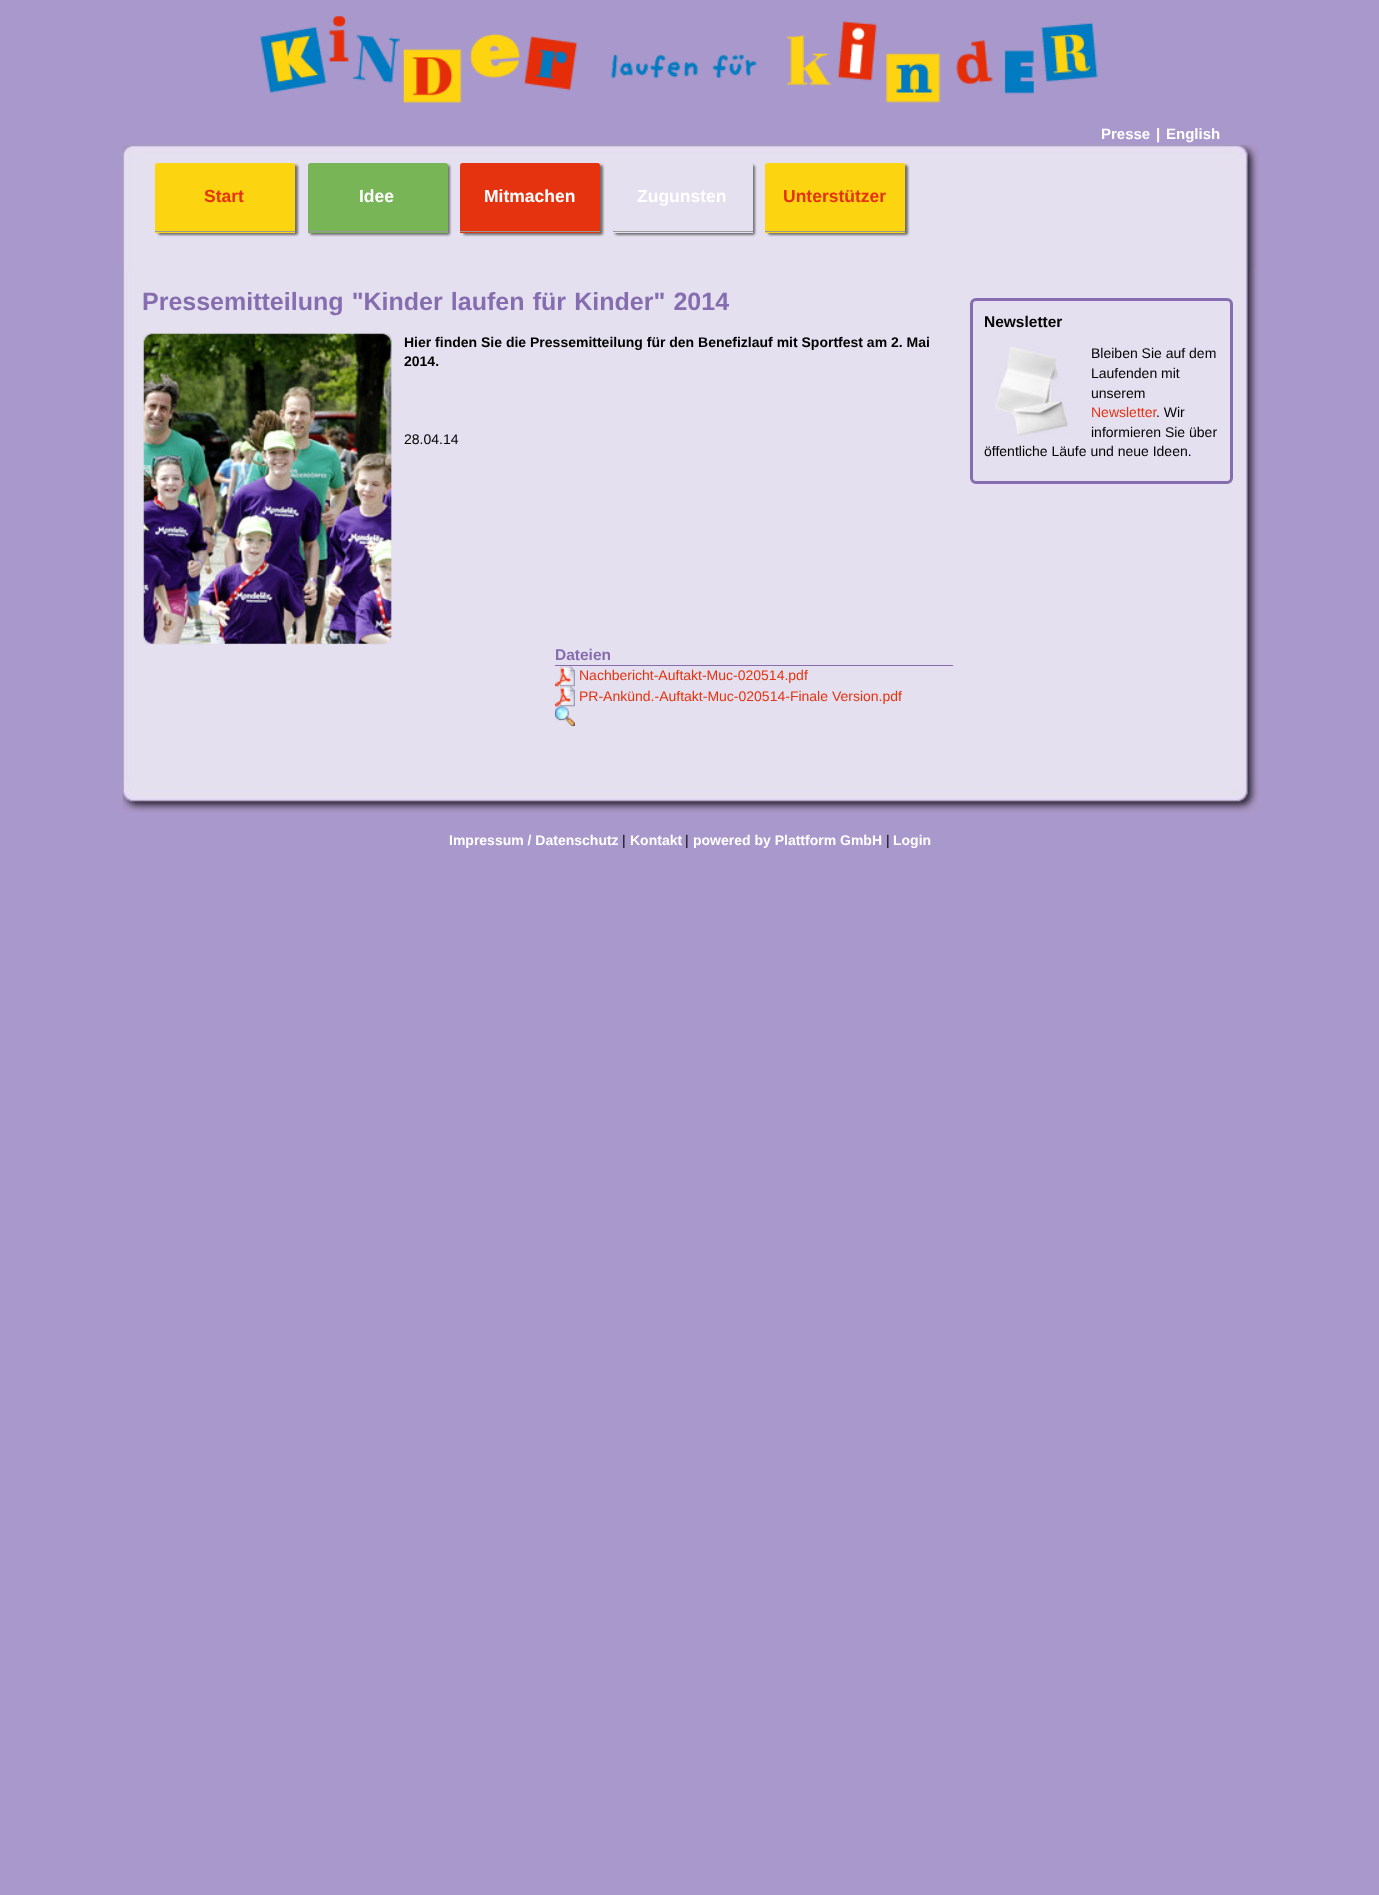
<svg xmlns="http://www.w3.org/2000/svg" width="1379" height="1895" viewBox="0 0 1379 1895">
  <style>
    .t1 { font: bold 15px Liberation Sans; fill: #fff; }
    .t2 { font: bold 17.5px Liberation Sans; fill: #e5320f; }
    .t3 { font: bold 17.5px Liberation Sans; fill: #fff; }
    .t4 { font: bold 25px Liberation Sans; fill: #856daf; }
    .t5 { font: bold 14px Liberation Sans; fill: #000; }
    .t6 { font: 14px Liberation Sans; fill: #000; }
    .t7 { font: bold 15.5px Liberation Sans; fill: #856daf; }
    .t8 { font: 14px Liberation Sans; fill: #e5320f; }
    .t9 { font: bold 15.5px Liberation Sans; fill: #000; }
    .t10 { font: bold 14px Liberation Sans; fill: #fff; }
  </style>
  <defs>
    <clipPath id="clip1"><path d="M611 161H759V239H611ZM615.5 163H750.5C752 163 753 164 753 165.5V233H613V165.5C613 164 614 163 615.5 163Z" clip-rule="evenodd"/></clipPath>
  </defs>
  <rect width="100%" height="100%" fill="#a898cc"/>
  <image x="123" y="0" width="1136" height="125" href="images/1.png"/>
  <text x="1101" y="139" class="t1">Presse</text>
  <text x="1156" y="139" class="t1">|</text>
  <text x="1166" y="139" class="t1">English</text>
  <image x="122" y="145" width="1137" height="668" href="images/2.png"/>
  <image x="122" y="145" width="1137" height="124" href="images/3.png"/>
  <rect x="158" y="165" width="140" height="70" rx="2.5" fill="#707072" filter="blur(1px)"/>
  <path d="M157.5 163H292.5C294 163 295 164 295 165.5V233H155V165.5C155 164 156 163 157.5 163Z" fill="#fcd410"/>
  <rect x="155" y="231" width="140" height="1" fill="#999"/>
  <text x="204" y="202" class="t2">Start</text>
  <rect x="310" y="165" width="140" height="70" rx="2.5" fill="#707072" filter="blur(1px)"/>
  <path d="M310.5 163H445.5C447 163 448 164 448 165.5V233H308V165.5C308 164 309 163 310.5 163Z" fill="#78b556"/>
  <rect x="308" y="231" width="140" height="1" fill="#999"/>
  <text x="359" y="202" class="t3">Idee</text>
  <rect x="463" y="165" width="140" height="70" rx="2.5" fill="#707072" filter="blur(1px)"/>
  <path d="M462.5 163H597.5C599 163 600 164 600 165.5V233H460V165.5C460 164 461 163 462.5 163Z" fill="#e5320f"/>
  <rect x="460" y="231" width="140" height="1" fill="#999"/>
  <text x="484" y="202" class="t3">Mitmachen</text>
  <g clip-path="url(#clip1)">
    <rect x="615" y="165" width="140" height="70" rx="2.5" fill="#707072" filter="blur(1px)"/>
  </g>
  <rect x="613" y="231" width="140" height="1" fill="#999"/>
  <text x="637" y="202" class="t3">Zugunsten</text>
  <rect x="768" y="165" width="140" height="70" rx="2.5" fill="#707072" filter="blur(1px)"/>
  <path d="M767.5 163H902.5C904 163 905 164 905 165.5V233H765V165.5C765 164 766 163 767.5 163Z" fill="#fcd410"/>
  <rect x="765" y="231" width="140" height="1" fill="#999"/>
  <text x="783" y="202" class="t2">Unterstützer</text>
  <image x="122" y="269" width="1137" height="513" href="images/4.png"/>
  <text x="142" y="310" word-spacing="1.25" class="t4">Pressemitteilung "Kinder laufen für Kinder" 2014</text>
  <image x="143" y="332" width="250" height="313" href="images/5.png"/>
  <text x="404" y="347" class="t5">Hier finden Sie die Pressemitteilung für den Benefizlauf mit Sportfest am 2. Mai</text>
  <text x="404" y="366" class="t5">2014.</text>
  <text x="404" y="444" class="t6">28.04.14</text>
  <rect x="555" y="665" width="398" height="1" fill="#856daf"/>
  <text x="555" y="660" class="t7">Dateien</text>
  <image x="555" y="666" width="20" height="21" href="images/6.png"/>
  <text x="579" y="680" class="t8">Nachbericht-Auftakt-Muc-020514.pdf</text>
  <image x="555" y="686" width="20" height="21" href="images/7.png"/>
  <text x="579" y="701" class="t8">PR-Ankünd.-Auftakt-Muc-020514-Finale Version.pdf</text>
  <image x="555" y="706" width="20" height="21" href="images/8.png"/>
  <rect x="971.5" y="299.5" width="260" height="183" rx="4.5" fill="none" stroke="#856daf" stroke-width="3"/>
  <text x="984" y="327" class="t9">Newsletter</text>
  <image x="995" y="345" width="73" height="91" href="images/9.png"/>
  <text x="1091" y="358" class="t6">Bleiben Sie auf dem</text>
  <text x="1091" y="378" class="t6">Laufenden mit</text>
  <text x="1091" y="398" class="t6">unserem</text>
  <text x="1091" y="417" class="t8">Newsletter</text>
  <text x="1156" y="417" class="t6">. Wir</text>
  <text x="1091" y="437" class="t6">informieren Sie über</text>
  <text x="984" y="456" class="t6">öffentliche Läufe und neue Ideen.</text>
  <text x="449" y="845" class="t10">Impressum / Datenschutz</text>
  <text x="622" y="845" class="t6">|</text>
  <text x="630" y="845" class="t10">Kontakt</text>
  <text x="685" y="845" class="t6">|</text>
  <text x="693" y="845" class="t10">powered by Plattform GmbH</text>
  <text x="886" y="845" class="t6">|</text>
  <text x="893" y="845" class="t10">Login</text>
</svg>
